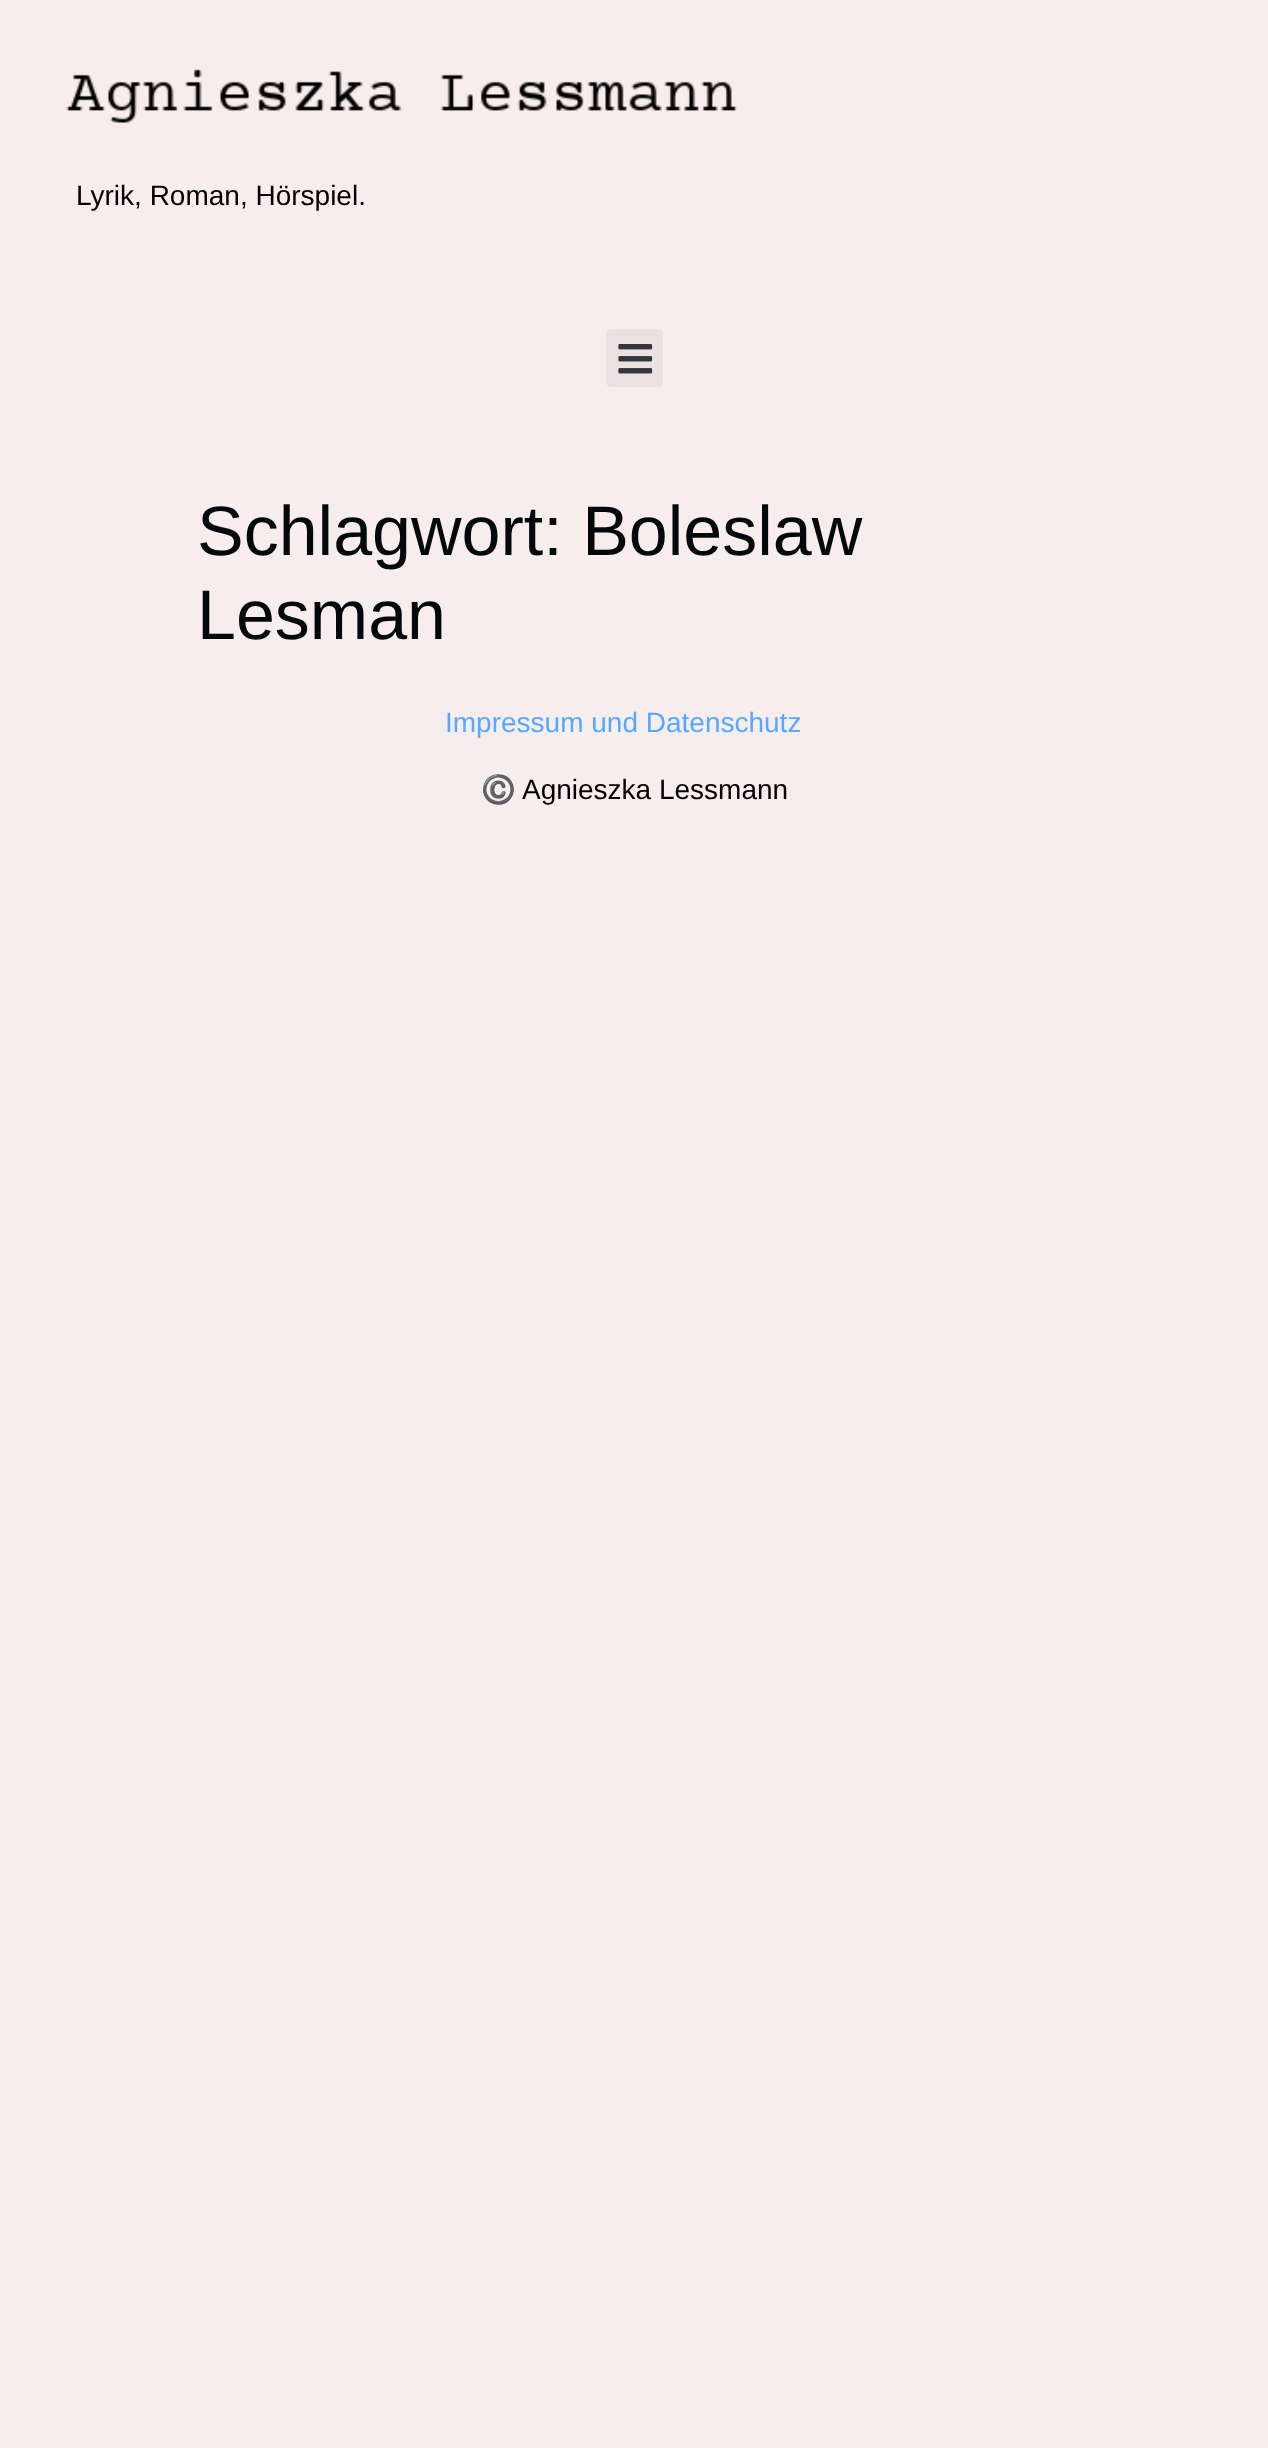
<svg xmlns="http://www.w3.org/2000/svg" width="1268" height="2448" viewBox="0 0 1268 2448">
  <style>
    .t1 { font: 28px Liberation Sans; fill: #000; }
    .t2 { font: 70px Liberation Sans; fill: #03080a; }
    .t3 { font: 28px Liberation Sans; fill: #5af; }
    .t4 { font: 28px Noto Color Emoji; fill: #000; }
  </style>
  <rect width="100%" height="100%" fill="#f6edec"/>
  <image x="66" y="69" width="671" height="54" href="images/1.png"/>
  <text x="76" y="205" class="t1">Lyrik, Roman, Hörspiel.</text>
  <rect x="606" y="329" width="57" height="58" rx="5" fill="#eae1e0"/>
  <image x="618" y="344" width="35" height="30" href="images/2.png"/>
  <text x="197" y="555" class="t2">Schlagwort: Boleslaw</text>
  <text x="197" y="639" class="t2">Lesman</text>
  <text x="445" y="732" class="t3">Impressum und Datenschutz</text>
  <text x="481" y="799" class="t4">©️</text>
  <text x="522" y="799" class="t1">Agnieszka Lessmann</text>
</svg>
